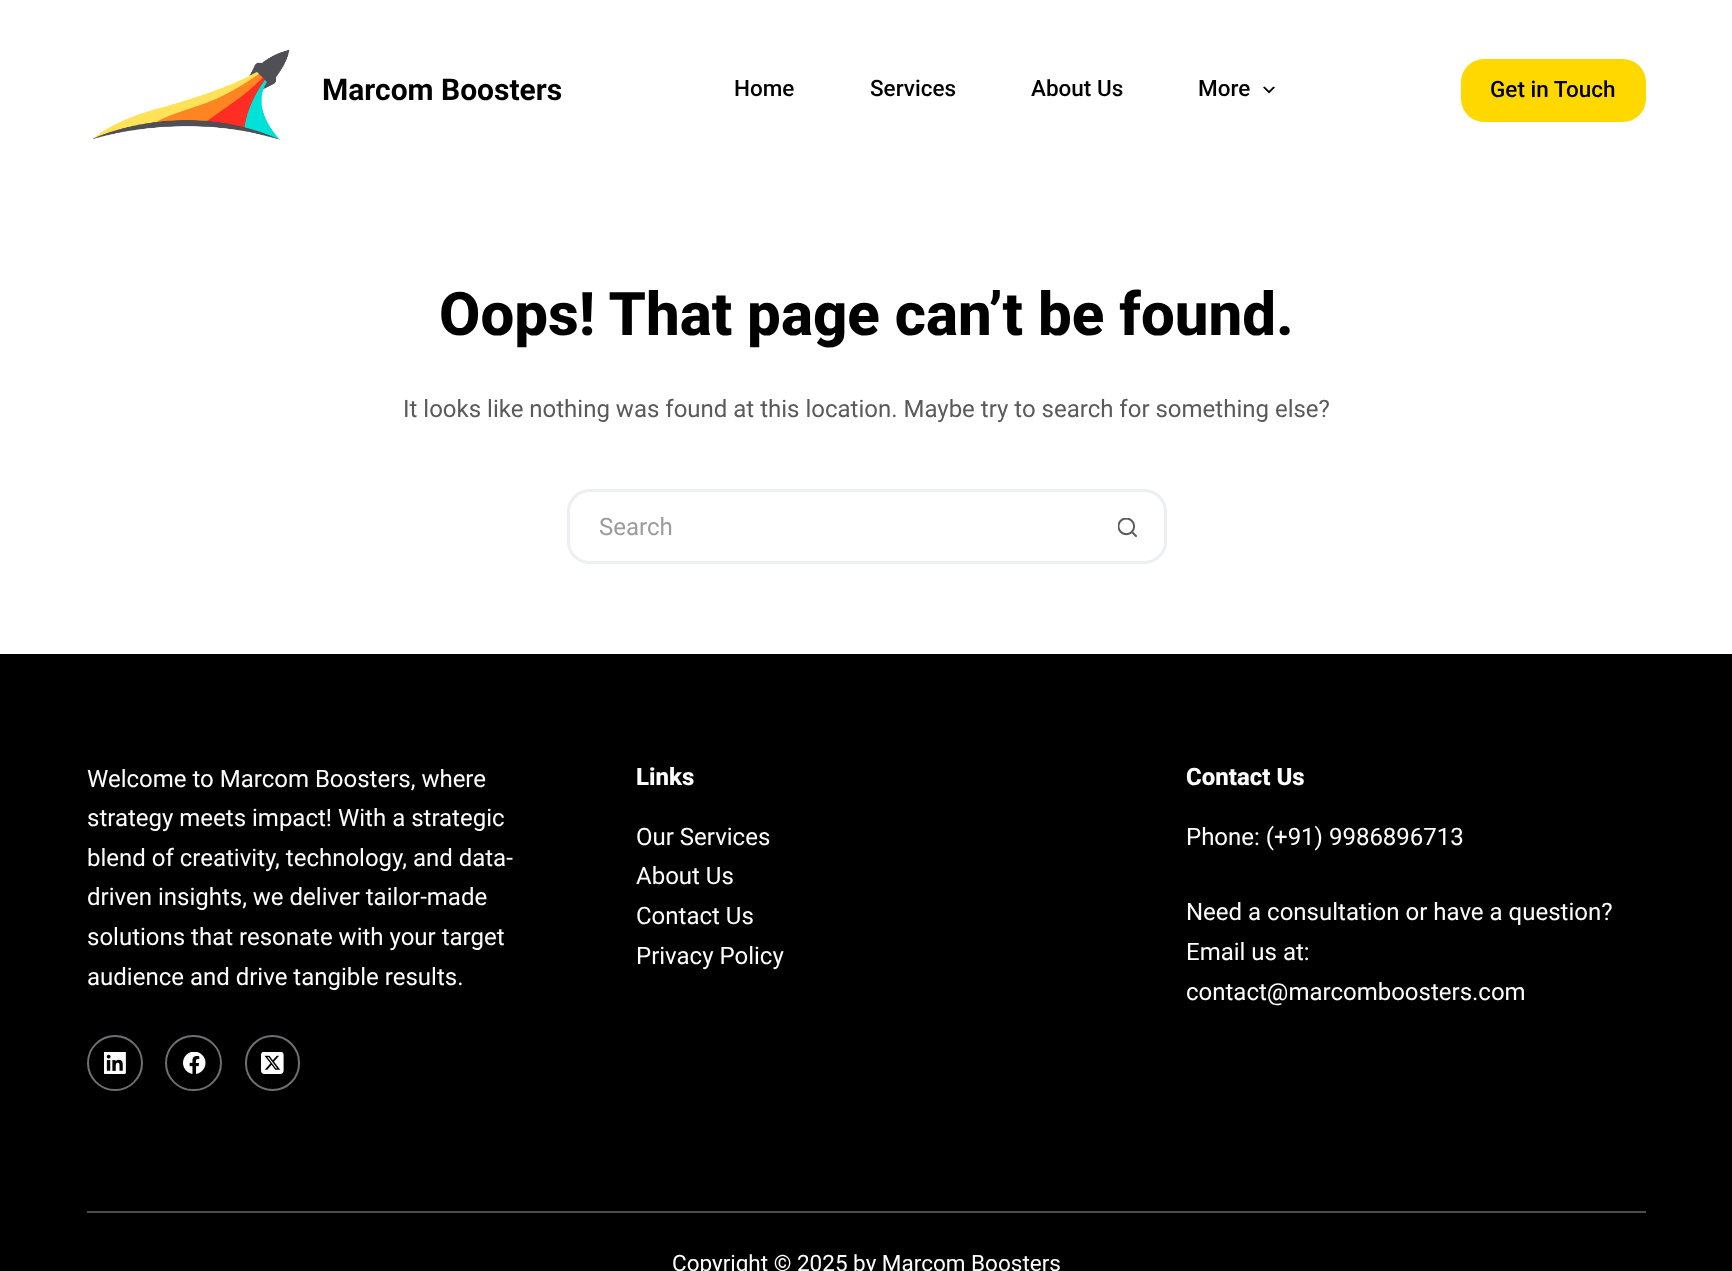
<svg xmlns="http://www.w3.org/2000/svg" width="1732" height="1271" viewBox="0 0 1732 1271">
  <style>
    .t1 { font: bold 30px Roboto; fill: #000; }
    .t2 { font: 500 22.5px Roboto; fill: #000; }
    .t3 { font: 800 60px Roboto; fill: #000; }
    .t4 { font: 24px Roboto; fill: #5a5a5a; }
    .t5 { font: 24px Roboto; fill: #9c9c9c; }
    .t6 { font: 24px Roboto; fill: #fdfdfd; }
    .t7 { font: 800 24px Roboto; fill: #fdfdfd; }
    .t8 { font: 22.5px Roboto; fill: #fdfdfd; }
  </style>
  <rect width="100%" height="100%" fill="#fff"/>
  <image x="93" y="49" width="197" height="91" href="images/1.png"/>
  <text x="322" y="100" class="t1">Marcom Boosters</text>
  <text x="734" y="96" class="t2">Home</text>
  <text x="870" y="96" class="t2">Services</text>
  <text x="1031" y="96" class="t2">About Us</text>
  <text x="1198" y="96" class="t2">More</text>
  <image x="1263" y="86" width="12" height="8" href="images/2.png"/>
  <rect x="1461" y="59" width="185" height="63" rx="23" fill="#ffd800"/>
  <text x="1490" y="97" class="t2">Get in Touch</text>
  <text x="439" y="335" class="t3">Oops! That page can’t be found.</text>
  <text x="403" y="417" class="t4">It looks like nothing was found at this location. Maybe try to search for something else?</text>
  <path d="M590 489H1092V564H590C577 564 567 554 567 542V512C567 499 577 489 590 489ZM590 492H1092V561H590C579 561 570 552 570 542V512C570 501 579 492 590 492Z" fill="#edeff2" fill-rule="evenodd"/>
  <text x="599" y="535" class="t5">Search</text>
  <path d="M1092 489H1144C1157 489 1167 499 1167 512V542C1167 554 1157 564 1144 564H1092ZM1092 492H1144C1155 492 1164 501 1164 512V542C1164 552 1155 561 1144 561H1092Z" fill="#edeff2" fill-rule="evenodd"/>
  <image x="1118" y="518" width="19" height="19" href="images/3.png"/>
  <rect x="0" y="654" width="1732" height="617" fill="#000"/>
  <text x="87" y="787" class="t6">Welcome to Marcom Boosters, where</text>
  <text x="87" y="826" class="t6">strategy meets impact! With a strategic</text>
  <text x="87" y="866" class="t6">blend of creativity, technology, and data-</text>
  <text x="87" y="905" class="t6">driven insights, we deliver tailor-made</text>
  <text x="87" y="945" class="t6">solutions that resonate with your target</text>
  <text x="87" y="985" class="t6">audience and drive tangible results.</text>
  <circle cx="115" cy="1063" r="27" fill="none" stroke="#6d6f72" stroke-width="2"/>
  <image x="104" y="1052" width="22" height="22" href="images/4.png"/>
  <rect x="166" y="1036" width="55" height="54" rx="27" fill="none" stroke="#6d6f72" stroke-width="2"/>
  <image x="183" y="1052" width="23" height="22" href="images/5.png"/>
  <rect x="246" y="1036" width="53" height="54" rx="26.5" fill="none" stroke="#6d6f72" stroke-width="2"/>
  <image x="261" y="1052" width="23" height="22" href="images/6.png"/>
  <text x="636" y="785" class="t7">Links</text>
  <text x="636" y="845" class="t6">Our Services</text>
  <text x="636" y="884" class="t6">About Us</text>
  <text x="636" y="924" class="t6">Contact Us</text>
  <text x="636" y="964" class="t6">Privacy Policy</text>
  <text x="1186" y="785" class="t7">Contact Us</text>
  <text x="1186" y="845" class="t6">Phone: (+91) 9986896713</text>
  <text x="1186" y="920" class="t6">Need a consultation or have a question?</text>
  <text x="1186" y="960" class="t6">Email us at:</text>
  <text x="1186" y="1000" class="t6">contact@marcomboosters.com</text>
  <rect x="87" y="1211" width="1559" height="2" fill="#4e4e4e"/>
  <text x="672" y="1271" class="t8">Copyright © 2025 by Marcom Boosters</text>
</svg>
